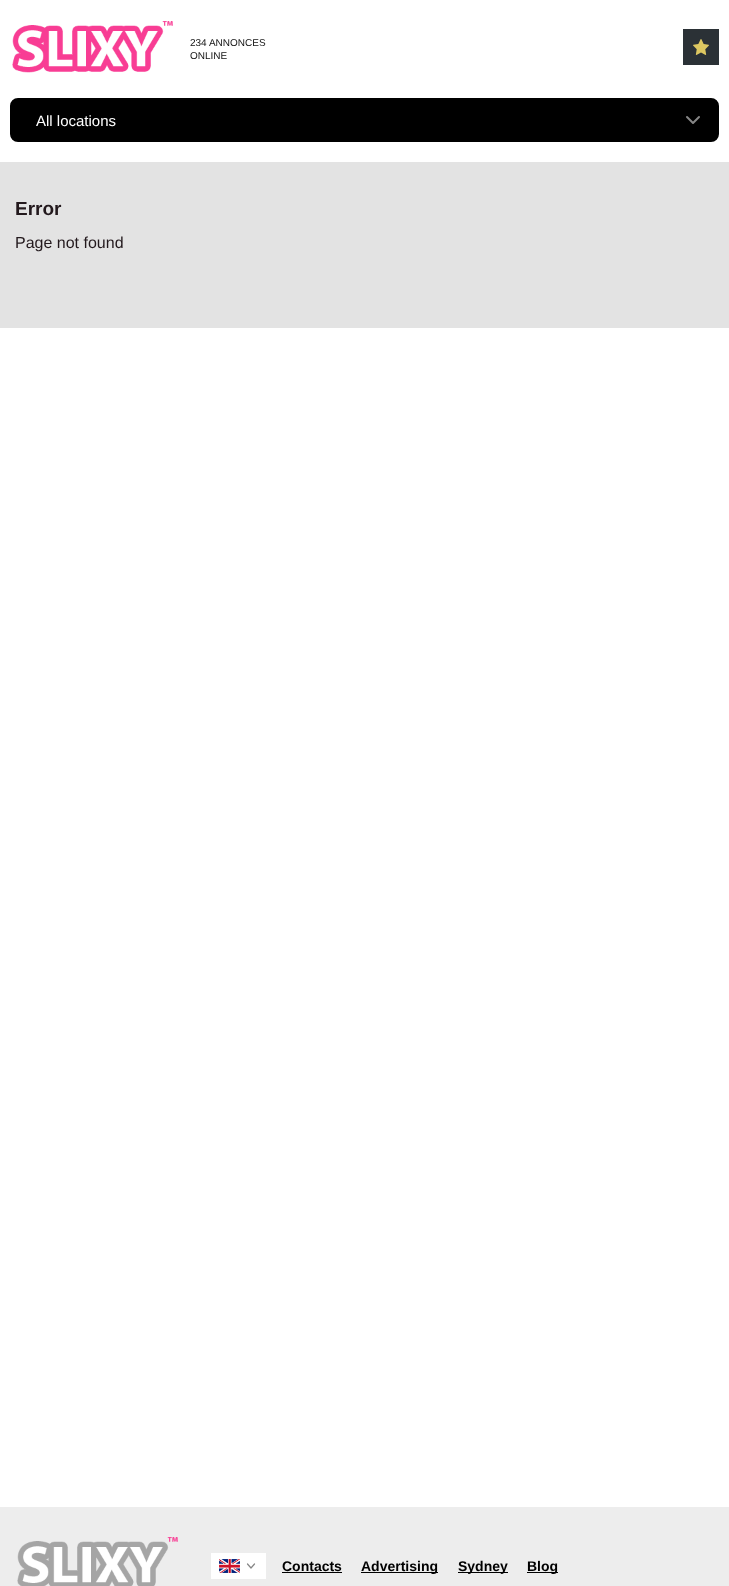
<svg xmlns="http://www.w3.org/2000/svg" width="729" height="1586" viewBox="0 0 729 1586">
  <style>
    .t1 { font: 10px Liberation Sans; fill: #131313; }
    .t2 { font: 15px Liberation Sans; fill: #fff; }
    .t3 { font: bold 19px Liberation Sans; fill: #23191d; }
    .t4 { font: 16px Liberation Sans; fill: #23191d; }
    .t5 { font: bold 14px Liberation Sans; fill: #000; }
  </style>
  <rect width="100%" height="100%" fill="#fff"/>
  <image x="12" y="21" width="161" height="52" href="images/1.png"/>
  <text x="190" y="46" class="t1">234 ANNONCES</text>
  <text x="190" y="59" class="t1">ONLINE</text>
  <rect x="683" y="29" width="36" height="36" fill="#2b3136"/>
  <image x="693" y="39" width="16" height="16" href="images/2.png"/>
  <rect x="11" y="99" width="707" height="42" rx="7" fill="#000" stroke="#000" stroke-width="2"/>
  <text x="36" y="126" class="t2">All locations</text>
  <path d="M687 117L693 123L699 117" fill="none" stroke="#868686" stroke-width="2" stroke-linecap="round" stroke-linejoin="round"/>
  <rect x="0" y="162" width="729" height="166" fill="#e3e3e3"/>
  <text x="15" y="215" class="t3">Error</text>
  <text x="15" y="248" class="t4">Page not found</text>
  <rect x="0" y="1507" width="729" height="79" fill="#ededed"/>
  <image x="17" y="1537" width="161" height="49" href="images/3.png"/>
  <rect x="211" y="1553" width="55" height="26" fill="#fff"/>
  <image x="219" y="1559" width="21" height="14" href="images/4.png"/>
  <path d="M247.5 1564L251 1568L254.5 1564" fill="none" stroke="#868686" stroke-width="1.2" stroke-linecap="round" stroke-linejoin="round"/>
  <text x="282" y="1571" class="t5">Contacts</text>
  <rect x="282" y="1572" width="60" height="1" fill="#000"/>
  <rect x="361" y="1572" width="77" height="1" fill="#000"/>
  <text x="361" y="1571" class="t5">Advertising</text>
  <rect x="458" y="1572" width="50" height="1" fill="#000"/>
  <text x="458" y="1571" class="t5">Sydney</text>
  <rect x="527" y="1572" width="31" height="1" fill="#000"/>
  <text x="527" y="1571" class="t5">Blog</text>
</svg>
